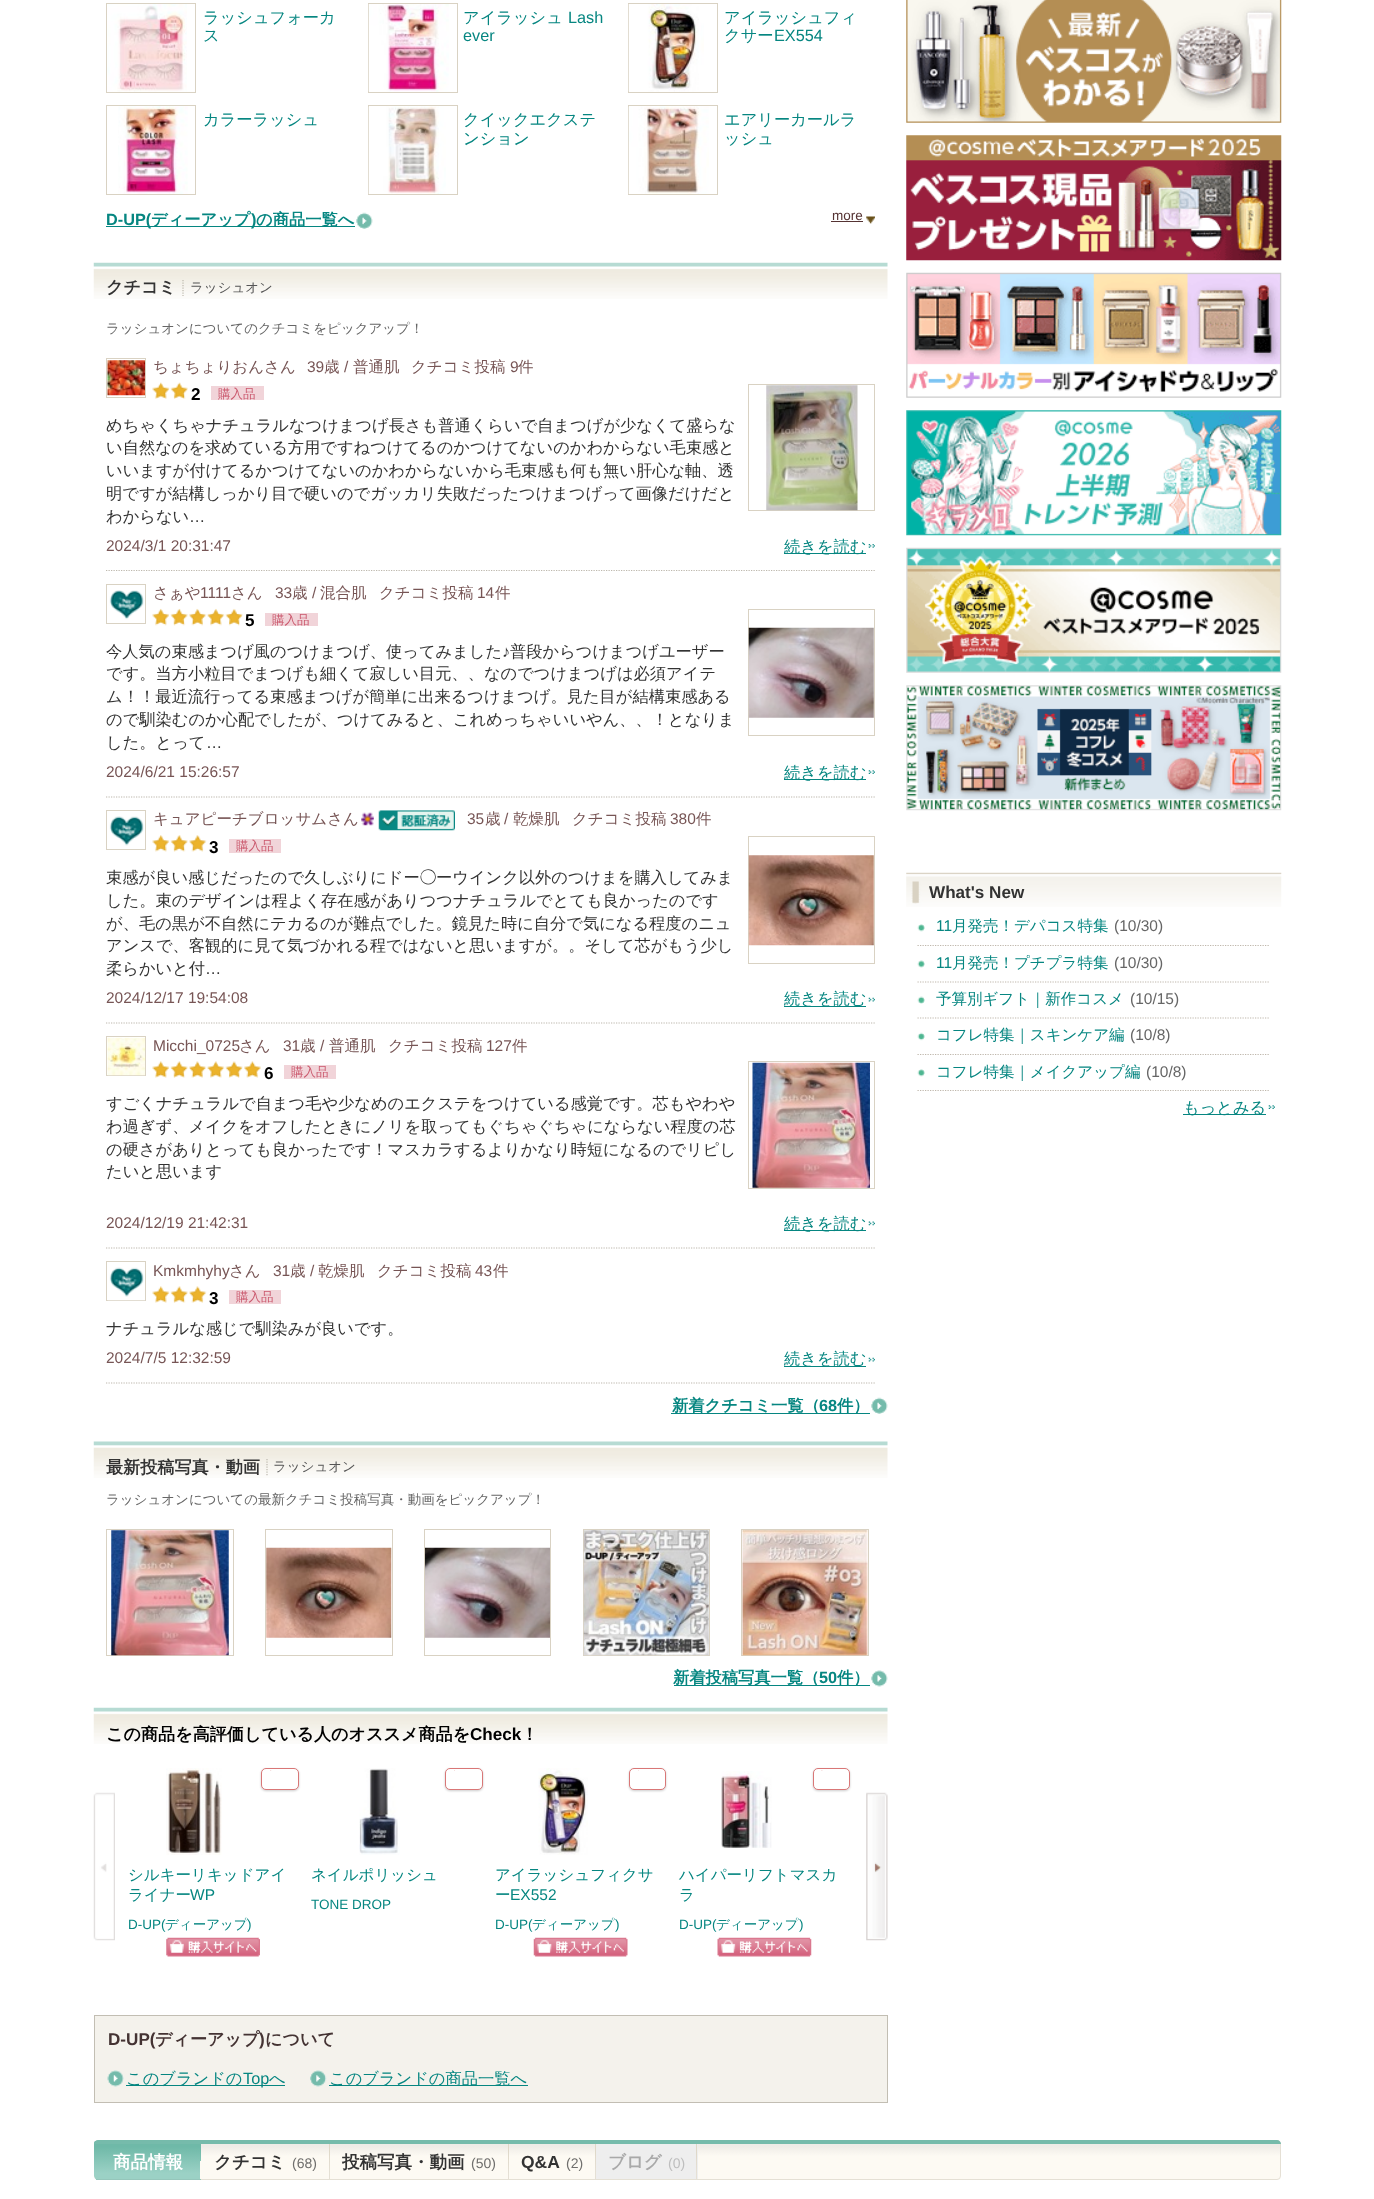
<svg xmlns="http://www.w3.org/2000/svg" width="1374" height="2199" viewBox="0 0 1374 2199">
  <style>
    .t1 { font: 500 16.25px WenQuanYi Zen Hei; fill: #068681; }
    .t2 { font: 16.25px Liberation Sans; fill: #068681; }
    .t3 { font: bold 16.25px Liberation Sans; fill: #068681; }
    .t4 { font: bold 16.25px WenQuanYi Zen Hei; fill: #068681; }
    .t5 { font: 13.5px Liberation Sans; fill: #533; }
    .t6 { font: bold 17.1px WenQuanYi Zen Hei; fill: #333; }
    .t7 { font: 500 13.5px WenQuanYi Zen Hei; fill: #555; }
    .t8 { font: 500 13.5px WenQuanYi Zen Hei; fill: #666; }
    .t9 { font: 500 15.5px WenQuanYi Zen Hei; fill: #755; }
    .t10 { font: 15.5px Liberation Sans; fill: #755; }
    .t11 { font: bold 17.1px Liberation Sans; fill: #000; }
    .t12 { font: 500 12.5px WenQuanYi Zen Hei; fill: #ca576c; }
    .t13 { font: 500 16.25px WenQuanYi Zen Hei; fill: #333; }
    .t14 { font: 16.25px Liberation Sans; fill: #333; }
    .t15 { font: 16.25px IPAPGothic; fill: #333; }
    .t16 { font: bold 17.1px WenQuanYi Zen Hei; fill: #000; }
    .t17 { font: 500 15.5px WenQuanYi Zen Hei; fill: #068681; }
    .t18 { font: 15.5px Liberation Sans; fill: #068681; }
    .t19 { font: 13.5px Liberation Sans; fill: #068681; }
    .t20 { font: 500 13.5px WenQuanYi Zen Hei; fill: #068681; }
    .t21 { font: bold 17.1px Liberation Sans; fill: #433; }
    .t22 { font: bold 17.1px WenQuanYi Zen Hei; fill: #433; }
    .t23 { font: bold 17.1px Liberation Sans; fill: #333; }
    .t24 { font: 15.5px Liberation Sans; fill: #666; }
    .t25 { font: bold 17.5px WenQuanYi Zen Hei; fill: #fff; }
    .t26 { font: bold 17.5px WenQuanYi Zen Hei; fill: #333; }
    .t27 { font: 14px Liberation Sans; fill: #706f6d; }
    .t28 { font: bold 17.5px Liberation Sans; fill: #333; }
    .t29 { font: bold 17.5px WenQuanYi Zen Hei; fill: #a9a9a9; }
    .t30 { font: 14px Liberation Sans; fill: #bebebe; }
  </style>
  <defs>
    <linearGradient id="g1" gradientUnits="userSpaceOnUse" x1="688" y1="2140" x2="688" y2="2180"><stop offset="0.16" stop-color="#efece7"/><stop offset="0.4" stop-color="#fdfaf3"/><stop offset="1" stop-color="#fdfaf3"/></linearGradient>
    <clipPath id="clip1"><rect x="94" y="2140" width="1187" height="40" rx="4"/></clipPath>
    <clipPath id="clip2"><path d="M94 2141H201V2180H99C96 2180 94 2178 94 2175Z"/></clipPath>
    <linearGradient id="g2" gradientUnits="userSpaceOnUse" x1="148" y1="2141" x2="148" y2="2179"><stop offset="0.15" stop-color="#6fb9a8"/><stop offset="0.85" stop-color="#9bd1c5"/></linearGradient>
    <linearGradient id="g3" gradientUnits="userSpaceOnUse" x1="201" y1="2144" x2="201" y2="2179"><stop offset="0.15" stop-color="#6fb9a8"/><stop offset="0.85" stop-color="#9bd1c5"/></linearGradient>
    <linearGradient id="g4" gradientUnits="userSpaceOnUse" x1="329" y1="2144" x2="329" y2="2179"><stop offset="0.15" stop-color="#ded7c7"/><stop offset="0.85" stop-color="#e5e0d5"/></linearGradient>
    <linearGradient id="g5" gradientUnits="userSpaceOnUse" x1="508" y1="2144" x2="508" y2="2179"><stop offset="0.15" stop-color="#ded7c7"/><stop offset="0.85" stop-color="#e5e0d5"/></linearGradient>
    <linearGradient id="g6" gradientUnits="userSpaceOnUse" x1="596" y1="2144" x2="596" y2="2179"><stop offset="0.15" stop-color="#ded7c7"/><stop offset="0.85" stop-color="#e5e0d5"/></linearGradient>
    <linearGradient id="g7" gradientUnits="userSpaceOnUse" x1="697" y1="2144" x2="697" y2="2179"><stop offset="0.15" stop-color="#ded7c7"/><stop offset="0.85" stop-color="#e5e0d5"/></linearGradient>
  </defs>
  <rect width="100%" height="100%" fill="#fff"/>
  <rect x="106.5" y="3.5" width="89" height="89" fill="none" stroke="#d9d2c3"/>
  <image x="107" y="4" width="80" height="88" href="images/1.png"/>
  <text x="203" y="23" class="t1">ラッシュフォーカ</text>
  <text x="203" y="41" class="t1">ス</text>
  <rect x="368.5" y="3.5" width="89" height="89" fill="none" stroke="#d9d2c3"/>
  <image x="368" y="4" width="81" height="88" href="images/2.png"/>
  <text x="463" y="23" class="t1">アイラッシュ</text>
  <text x="568" y="23" class="t2">Lash</text>
  <text x="463" y="41" class="t2">ever</text>
  <rect x="628.5" y="3.5" width="89" height="89" fill="none" stroke="#d9d2c3"/>
  <image x="628" y="4" width="76" height="88" href="images/3.png"/>
  <text x="724" y="23" class="t1">アイラッシュフィ</text>
  <text x="724" y="41" class="t1">クサー</text>
  <text x="774" y="41" class="t2">EX554</text>
  <rect x="106.5" y="105.5" width="89" height="89" fill="none" stroke="#d9d2c3"/>
  <image x="118" y="106" width="70" height="88" href="images/4.png"/>
  <text x="203" y="125" class="t1">カラーラッシュ</text>
  <rect x="368.5" y="105.5" width="89" height="89" fill="none" stroke="#d9d2c3"/>
  <image x="368" y="106" width="78" height="88" href="images/5.png"/>
  <text x="463" y="125" class="t1">クイックエクステ</text>
  <text x="463" y="144" class="t1">ンション</text>
  <rect x="628.5" y="105.5" width="89" height="89" fill="none" stroke="#d9d2c3"/>
  <image x="628" y="106" width="81" height="88" href="images/6.png"/>
  <text x="724" y="125" class="t1">エアリーカールラ</text>
  <text x="724" y="144" class="t1">ッシュ</text>
  <rect x="106" y="226" width="249" height="1" fill="#068681"/>
  <text x="106" y="225" class="t3">D-UP(</text>
  <text x="151" y="225" class="t4">ディーアップ</text>
  <text x="251" y="225" class="t3">)</text>
  <text x="256" y="225" class="t4">の商品一覧へ</text>
  <image x="356" y="212" width="17" height="17" href="images/7.png"/>
  <image x="866" y="216" width="9" height="8" href="images/8.png"/>
  <text x="832" y="220" class="t5">more</text>
  <rect x="831" y="221" width="32" height="1" fill="#533"/>
  <image x="93" y="262" width="795" height="37" href="images/9.png"/>
  <text x="106" y="293" class="t6">クチコミ</text>
  <path d="M183 280V296" fill="none" stroke="#bdb8ad" stroke-width="1.2" stroke-dasharray="1.25 1.25"/>
  <text x="190" y="292" class="t7">ラッシュオン</text>
  <text x="106" y="333" class="t8">ラッシュオンについてのクチコミをピックアップ！</text>
  <path d="M106 570.5H875" fill="none" stroke="#bdb8ad" stroke-width="1.2" stroke-dasharray="1.25 1.25"/>
  <rect x="106.5" y="358.5" width="39" height="39" fill="none" stroke="#d9d2c3"/>
  <image x="107" y="360" width="38" height="36" href="images/10.png"/>
  <text x="153" y="372" class="t9">ちょちょりおんさん</text>
  <text x="307" y="372" class="t10">39</text>
  <text x="324" y="372" class="t9">歳</text>
  <text x="344" y="372" class="t10">/</text>
  <text x="353" y="372" class="t9">普通肌</text>
  <text x="411" y="372" class="t9">クチコミ投稿</text>
  <text x="510" y="372" class="t10">9</text>
  <text x="518" y="372" class="t9">件</text>
  <image x="152" y="382" width="36" height="17" href="images/11.png"/>
  <text x="191" y="400" class="t11">2</text>
  <rect x="211" y="386" width="53" height="14" fill="#f1d4d9"/>
  <text x="218" y="398" class="t12">購入品</text>
  <text x="106" y="431" class="t13">めちゃくちゃナチュラルなつけまつげ長さも普通くらいで自まつげが少なくて盛らな</text>
  <text x="106" y="453" class="t13">い自然なのを求めている方用ですねつけてるのかつけてないのかわからない毛束感と</text>
  <text x="106" y="476" class="t13">いいますが付けてるかつけてないのかわからないから毛束感も何も無い肝心な軸、透</text>
  <text x="106" y="499" class="t13">明ですが結構しっかり目で硬いのでガッカリ失敗だったつけまつげって画像だけだと</text>
  <text x="106" y="522" class="t13">わからない</text>
  <text x="189" y="522" class="t14">…</text>
  <rect x="748.5" y="384.5" width="126" height="126" fill="none" stroke="#d9d2c3"/>
  <image x="766" y="385" width="92" height="126" href="images/12.png"/>
  <text x="106" y="551" class="t10">2024/3/1 20:31:47</text>
  <rect x="784" y="553" width="82" height="1" fill="#068681"/>
  <text x="784" y="552" class="t1">続きを読む</text>
  <image x="868" y="544" width="7" height="4" href="images/13.png"/>
  <path d="M106 797H875" fill="none" stroke="#bdb8ad" stroke-width="1.2" stroke-dasharray="1.25 1.25"/>
  <rect x="106.5" y="584.5" width="39" height="39" fill="none" stroke="#d9d2c3"/>
  <image x="109" y="590" width="35" height="30" href="images/14.png"/>
  <text x="153" y="598" class="t9">さぁや</text>
  <text x="200" y="598" class="t10">1111</text>
  <text x="231" y="598" class="t9">さん</text>
  <text x="275" y="598" class="t10">33</text>
  <text x="292" y="598" class="t9">歳</text>
  <text x="312" y="598" class="t10">/</text>
  <text x="320" y="598" class="t9">混合肌</text>
  <text x="379" y="598" class="t9">クチコミ投稿</text>
  <text x="477" y="598" class="t10">14</text>
  <text x="495" y="598" class="t9">件</text>
  <image x="152" y="608" width="91" height="18" href="images/15.png"/>
  <text x="245" y="626" class="t11">5</text>
  <rect x="265" y="613" width="53" height="13" fill="#f1d4d9"/>
  <text x="272" y="624" class="t12">購入品</text>
  <text x="106" y="657" class="t13">今人気の束感まつげ風のつけまつげ、使ってみました</text>
  <text x="502" y="657" class="t14">♪</text>
  <text x="510" y="657" class="t13">普段からつけまつげユーザー</text>
  <text x="106" y="679" class="t13">です。当方小粒目でまつげも細くて寂しい目元、、なのでつけまつげは必須アイテ</text>
  <text x="106" y="702" class="t13">ム！！最近流行ってる束感まつげが簡単に出来るつけまつげ。見た目が結構束感ある</text>
  <text x="106" y="725" class="t13">ので馴染むのか心配でしたが、つけてみると、これめっちゃいいやん、、！となりま</text>
  <text x="106" y="748" class="t13">した。とって</text>
  <text x="206" y="748" class="t14">…</text>
  <rect x="748.5" y="609.5" width="126" height="126" fill="none" stroke="#d9d2c3"/>
  <image x="748" y="627" width="126" height="91" href="images/16.png"/>
  <text x="106" y="777" class="t10">2024/6/21 15:26:57</text>
  <rect x="784" y="779" width="82" height="1" fill="#068681"/>
  <text x="784" y="778" class="t1">続きを読む</text>
  <image x="868" y="770" width="7" height="4" href="images/17.png"/>
  <path d="M106 1023H875" fill="none" stroke="#bdb8ad" stroke-width="1.2" stroke-dasharray="1.25 1.25"/>
  <rect x="106.5" y="810.5" width="39" height="39" fill="none" stroke="#d9d2c3"/>
  <image x="109" y="816" width="35" height="30" href="images/18.png"/>
  <text x="153" y="824" class="t9">キュアピーチブロッサムさん</text>
  <image x="361" y="812" width="13" height="14" href="images/19.png"/>
  <image x="378" y="810" width="77" height="21" href="images/20.png"/>
  <text x="467" y="824" class="t10">35</text>
  <text x="485" y="824" class="t9">歳</text>
  <text x="504" y="824" class="t10">/</text>
  <text x="513" y="824" class="t9">乾燥肌</text>
  <text x="572" y="824" class="t9">クチコミ投稿</text>
  <text x="670" y="824" class="t10">380</text>
  <text x="696" y="824" class="t9">件</text>
  <image x="152" y="835" width="55" height="17" href="images/21.png"/>
  <text x="209" y="853" class="t11">3</text>
  <rect x="229" y="839" width="52" height="14" fill="#f1d4d9"/>
  <text x="236" y="850" class="t12">購入品</text>
  <text x="106" y="883" class="t13">束感が良い感じだったので久しぶりにドー</text>
  <text x="420" y="883" class="t15">◯</text>
  <text x="436" y="883" class="t13">ーウインク以外のつけまを購入してみま</text>
  <text x="106" y="906" class="t13">した。束のデザインは程よく存在感がありつつナチュラルでとても良かったのです</text>
  <text x="106" y="929" class="t13">が、毛の黒が不自然にテカるのが難点でした。鏡見た時に自分で気になる程度のニュ</text>
  <text x="106" y="951" class="t13">アンスで、客観的に見て気づかれる程ではないと思いますが。。そして芯がもう少し</text>
  <text x="106" y="974" class="t13">柔らかいと付</text>
  <text x="205" y="974" class="t14">…</text>
  <rect x="748.5" y="836.5" width="126" height="127" fill="none" stroke="#d9d2c3"/>
  <image x="748" y="855" width="126" height="91" href="images/22.png"/>
  <text x="106" y="1003" class="t10">2024/12/17 19:54:08</text>
  <rect x="784" y="1006" width="82" height="1" fill="#068681"/>
  <text x="784" y="1004" class="t1">続きを読む</text>
  <image x="868" y="997" width="7" height="5" href="images/23.png"/>
  <path d="M106 1248H875" fill="none" stroke="#bdb8ad" stroke-width="1.2" stroke-dasharray="1.25 1.25"/>
  <rect x="106.5" y="1036.5" width="39" height="39" fill="none" stroke="#d9d2c3"/>
  <image x="107" y="1037" width="38" height="39" href="images/24.png"/>
  <text x="153" y="1051" class="t10">Micchi_0725</text>
  <text x="239" y="1051" class="t9">さん</text>
  <text x="283" y="1051" class="t10">31</text>
  <text x="300" y="1051" class="t9">歳</text>
  <text x="320" y="1051" class="t10">/</text>
  <text x="329" y="1051" class="t9">普通肌</text>
  <text x="388" y="1051" class="t9">クチコミ投稿</text>
  <text x="486" y="1051" class="t10">127</text>
  <text x="512" y="1051" class="t9">件</text>
  <image x="152" y="1061" width="109" height="17" href="images/25.png"/>
  <text x="264" y="1079" class="t11">6</text>
  <rect x="284" y="1065" width="52" height="14" fill="#f1d4d9"/>
  <text x="291" y="1076" class="t12">購入品</text>
  <text x="106" y="1109" class="t13">すごくナチュラルで自まつ毛や少なめのエクステをつけている感覚です。芯もやわや</text>
  <text x="106" y="1132" class="t13">わ過ぎず、メイクをオフしたときにノリを取ってもぐちゃぐちゃにならない程度の芯</text>
  <text x="106" y="1155" class="t13">の硬さがありとっても良かったです！マスカラするよりかなり時短になるのでリピし</text>
  <text x="106" y="1177" class="t13">たいと思います</text>
  <rect x="748.5" y="1061.5" width="126" height="127" fill="none" stroke="#d9d2c3"/>
  <image x="752" y="1062" width="118" height="126" href="images/26.png"/>
  <text x="106" y="1228" class="t10">2024/12/19 21:42:31</text>
  <rect x="784" y="1230" width="82" height="1" fill="#068681"/>
  <text x="784" y="1229" class="t1">続きを読む</text>
  <image x="868" y="1221" width="7" height="5" href="images/27.png"/>
  <path d="M106 1383H875" fill="none" stroke="#bdb8ad" stroke-width="1.2" stroke-dasharray="1.25 1.25"/>
  <rect x="106.5" y="1261.5" width="39" height="39" fill="none" stroke="#d9d2c3"/>
  <image x="107" y="1267" width="38" height="34" href="images/28.png"/>
  <text x="153" y="1276" class="t10">Kmkmhyhy</text>
  <text x="229" y="1276" class="t9">さん</text>
  <text x="273" y="1276" class="t10">31</text>
  <text x="290" y="1276" class="t9">歳</text>
  <text x="310" y="1276" class="t10">/</text>
  <text x="318" y="1276" class="t9">乾燥肌</text>
  <text x="377" y="1276" class="t9">クチコミ投稿</text>
  <text x="475" y="1276" class="t10">43</text>
  <text x="493" y="1276" class="t9">件</text>
  <image x="152" y="1286" width="55" height="17" href="images/29.png"/>
  <text x="209" y="1304" class="t11">3</text>
  <rect x="229" y="1290" width="52" height="14" fill="#f1d4d9"/>
  <text x="236" y="1301" class="t12">購入品</text>
  <text x="106" y="1334" class="t13">ナチュラルな感じで馴染みが良いです。</text>
  <text x="106" y="1363" class="t10">2024/7/5 12:32:59</text>
  <rect x="784" y="1366" width="82" height="1" fill="#068681"/>
  <text x="784" y="1364" class="t1">続きを読む</text>
  <image x="868" y="1357" width="7" height="5" href="images/23.png"/>
  <image x="871" y="1397" width="17" height="17" href="images/7.png"/>
  <rect x="671" y="1413" width="199" height="1" fill="#068681"/>
  <text x="672" y="1411" class="t4">新着クチコミ一覧（</text>
  <text x="819" y="1411" class="t3">68</text>
  <text x="837" y="1411" class="t4">件）</text>
  <image x="93" y="1441" width="795" height="37" href="images/30.png"/>
  <text x="106" y="1473" class="t6">最新投稿写真・動画</text>
  <path d="M267 1459V1476" fill="none" stroke="#bdb8ad" stroke-width="1.2" stroke-dasharray="1.25 1.25"/>
  <text x="273" y="1471" class="t7">ラッシュオン</text>
  <text x="106" y="1504" class="t8">ラッシュオンについての最新クチコミ投稿写真・動画をピックアップ！</text>
  <rect x="106.5" y="1529.5" width="127" height="126" fill="none" stroke="#d9d2c3"/>
  <image x="111" y="1530" width="118" height="126" href="images/31.png"/>
  <rect x="265.5" y="1529.5" width="127" height="126" fill="none" stroke="#d9d2c3"/>
  <image x="266" y="1547" width="126" height="91" href="images/32.png"/>
  <rect x="424.5" y="1529.5" width="126" height="126" fill="none" stroke="#d9d2c3"/>
  <image x="425" y="1547" width="125" height="91" href="images/33.png"/>
  <rect x="583.5" y="1529.5" width="126" height="126" fill="none" stroke="#d9d2c3"/>
  <image x="583" y="1530" width="126" height="126" href="images/34.png"/>
  <rect x="741.5" y="1529.5" width="127" height="126" fill="none" stroke="#d9d2c3"/>
  <image x="742" y="1530" width="126" height="126" href="images/35.png"/>
  <rect x="674" y="1685" width="196" height="1" fill="#068681"/>
  <text x="673" y="1683" class="t4">新着投稿写真一覧（</text>
  <text x="819" y="1683" class="t3">50</text>
  <text x="837" y="1683" class="t4">件）</text>
  <image x="871" y="1670" width="17" height="17" href="images/36.png"/>
  <image x="93" y="1707" width="795" height="37" href="images/9.png"/>
  <text x="106" y="1740" class="t16">この商品を高評価している人のオススメ商品を</text>
  <text x="470" y="1740" class="t11">Check</text>
  <text x="521" y="1740" class="t16">！</text>
  <image x="93" y="1792" width="22" height="149" href="images/37.png"/>
  <rect x="261" y="1769" width="38" height="22" rx="5" fill="#00000033" filter="blur(1px)"/>
  <rect x="261.5" y="1768.5" width="37" height="21" rx="4.5" fill="#fff" stroke="#d97777"/>
  <image x="270" y="1770" width="2" height="1" href="images/38.png"/>
  <image x="166" y="1768" width="56" height="87" href="images/39.png"/>
  <text x="128" y="1880" class="t17">シルキーリキッドアイ</text>
  <text x="128" y="1900" class="t17">ライナー</text>
  <text x="190" y="1900" class="t18">WP</text>
  <text x="128" y="1929" class="t19">D-UP(</text>
  <text x="165" y="1929" class="t20">ディーアップ</text>
  <text x="247" y="1929" class="t19">)</text>
  <image x="166" y="1937" width="94" height="20" href="images/40.png"/>
  <rect x="445" y="1769" width="38" height="22" rx="5" fill="#00000033" filter="blur(1px)"/>
  <rect x="445.5" y="1768.5" width="37" height="21" rx="4.5" fill="#fff" stroke="#d97777"/>
  <rect x="454" y="1770" width="1" height="1" fill="#f6e0e0"/>
  <image x="359" y="1768" width="41" height="87" href="images/41.png"/>
  <text x="311" y="1880" class="t17">ネイルポリッシュ</text>
  <text x="311" y="1909" class="t19">TONE DROP</text>
  <rect x="629" y="1769" width="37" height="22" rx="5" fill="#00000033" filter="blur(1px)"/>
  <rect x="629.5" y="1768.5" width="36" height="21" rx="4.5" fill="#fff" stroke="#d97777"/>
  <rect x="638" y="1770" width="1" height="1" fill="#f8e7e7"/>
  <image x="538" y="1768" width="50" height="87" href="images/42.png"/>
  <text x="495" y="1880" class="t17">アイラッシュフィクサ</text>
  <text x="495" y="1900" class="t17">ー</text>
  <text x="510" y="1900" class="t18">EX552</text>
  <text x="495" y="1929" class="t19">D-UP(</text>
  <text x="532" y="1929" class="t20">ディーアップ</text>
  <text x="615" y="1929" class="t19">)</text>
  <image x="533" y="1937" width="95" height="20" href="images/43.png"/>
  <rect x="813" y="1769" width="37" height="22" rx="5" fill="#00000033" filter="blur(1px)"/>
  <rect x="813.5" y="1768.5" width="36" height="21" rx="4.5" fill="#fff" stroke="#d97777"/>
  <image x="821" y="1770" width="2" height="1" href="images/44.png"/>
  <image x="721" y="1771" width="51" height="77" href="images/45.png"/>
  <text x="679" y="1880" class="t17">ハイパーリフトマスカ</text>
  <text x="679" y="1900" class="t17">ラ</text>
  <text x="679" y="1929" class="t19">D-UP(</text>
  <text x="716" y="1929" class="t20">ディーアップ</text>
  <text x="799" y="1929" class="t19">)</text>
  <image x="717" y="1937" width="95" height="20" href="images/46.png"/>
  <image x="866" y="1792" width="22" height="149" href="images/47.png"/>
  <rect x="94.5" y="2015.5" width="793" height="87" fill="#f4f2ec" stroke="#c2beb3"/>
  <text x="108" y="2045" class="t21">D-UP(</text>
  <text x="155" y="2045" class="t22">ディーアップ</text>
  <text x="259" y="2045" class="t21">)</text>
  <text x="265" y="2045" class="t22">について</text>
  <image x="107" y="2070" width="17" height="17" href="images/48.png"/>
  <rect x="126" y="2085" width="159" height="1" fill="#068681"/>
  <text x="126" y="2084" class="t1">このブランドの</text>
  <text x="243" y="2084" class="t2">Top</text>
  <text x="269" y="2084" class="t1">へ</text>
  <image x="310" y="2070" width="17" height="17" href="images/49.png"/>
  <rect x="329" y="2085" width="199" height="1" fill="#068681"/>
  <text x="329" y="2084" class="t1">このブランドの商品一覧へ</text>
  <image x="906" y="0" width="376" height="123" href="images/50.png"/>
  <image x="906" y="135" width="376" height="126" href="images/51.png"/>
  <image x="906" y="272" width="376" height="126" href="images/52.png"/>
  <image x="906" y="410" width="376" height="126" href="images/53.png"/>
  <image x="906" y="547" width="376" height="126" href="images/54.png"/>
  <image x="906" y="685" width="376" height="126" href="images/55.png"/>
  <image x="906" y="872" width="376" height="35" href="images/56.png"/>
  <text x="929" y="898" class="t23">What's New</text>
  <image x="917" y="924" width="8" height="8" href="images/57.png"/>
  <path d="M917.5 945.5H1270" fill="none" stroke="#bfb7ac" stroke-width="1.2" stroke-dasharray="1.25 1.25"/>
  <text x="936" y="931" class="t18">11</text>
  <text x="952" y="931" class="t17">月発売！デパコス特集</text>
  <text x="1114" y="931" class="t24">(10/30)</text>
  <image x="917" y="960" width="8" height="8" href="images/58.png"/>
  <path d="M917.5 982H1270" fill="none" stroke="#bfb7ac" stroke-width="1.2" stroke-dasharray="1.25 1.25"/>
  <text x="936" y="968" class="t18">11</text>
  <text x="952" y="968" class="t17">月発売！プチプラ特集</text>
  <text x="1114" y="968" class="t24">(10/30)</text>
  <image x="917" y="996" width="8" height="8" href="images/59.png"/>
  <path d="M917.5 1018H1270" fill="none" stroke="#bfb7ac" stroke-width="1.2" stroke-dasharray="1.25 1.25"/>
  <text x="936" y="1004" class="t17">予算別ギフト｜新作コスメ</text>
  <text x="1130" y="1004" class="t24">(10/15)</text>
  <image x="917" y="1032" width="8" height="9" href="images/60.png"/>
  <path d="M917.5 1054.5H1270" fill="none" stroke="#bfb7ac" stroke-width="1.2" stroke-dasharray="1.25 1.25"/>
  <text x="936" y="1040" class="t17">コフレ特集｜スキンケア編</text>
  <text x="1130" y="1040" class="t24">(10/8)</text>
  <image x="917" y="1069" width="8" height="8" href="images/57.png"/>
  <path d="M917.5 1090.5H1270" fill="none" stroke="#bfb7ac" stroke-width="1.2" stroke-dasharray="1.25 1.25"/>
  <text x="936" y="1077" class="t17">コフレ特集｜メイクアップ編</text>
  <text x="1146" y="1077" class="t24">(10/8)</text>
  <rect x="1183" y="1114" width="83" height="1" fill="#068681"/>
  <text x="1183" y="1113" class="t1">もっとみる</text>
  <image x="1268" y="1105" width="7" height="4" href="images/61.png"/>
  <rect x="94.5" y="2140.5" width="1186" height="39" rx="3.5" fill="url(#g1)" stroke="#e5e0d5"/>
  <g clip-path="url(#clip1)">
    <g clip-path="url(#clip2)">
      <rect x="94" y="2141" width="106" height="38" fill="url(#g2)"/>
    </g>
  </g>
  <path d="M98 2140H1277C1279 2140 1281 2142 1281 2144H94C94 2142 96 2140 98 2140Z" fill="#76bbab"/>
  <rect x="96" y="2179" width="105" height="1" fill="#95c6bb"/>
  <text x="113" y="2168" class="t25">商品情報</text>
  <rect x="200" y="2144" width="1" height="17" fill="url(#g3)"/>
  <text x="214" y="2168" class="t26">クチコミ</text>
  <text x="292" y="2168" class="t27">(68)</text>
  <rect x="329" y="2144" width="1" height="35" fill="url(#g4)"/>
  <text x="342" y="2168" class="t26">投稿写真・動画</text>
  <text x="471" y="2168" class="t27">(50)</text>
  <rect x="508" y="2144" width="1" height="35" fill="url(#g5)"/>
  <text x="521" y="2168" class="t28">Q&amp;A</text>
  <text x="566" y="2168" class="t27">(2)</text>
  <rect x="595" y="2144" width="1" height="35" fill="url(#g6)"/>
  <rect x="596" y="2144" width="102" height="35" fill="#eee"/>
  <text x="608" y="2168" class="t29">ブログ</text>
  <text x="668" y="2168" class="t30">(0)</text>
  <rect x="696" y="2144" width="1" height="35" fill="url(#g7)"/>
</svg>
